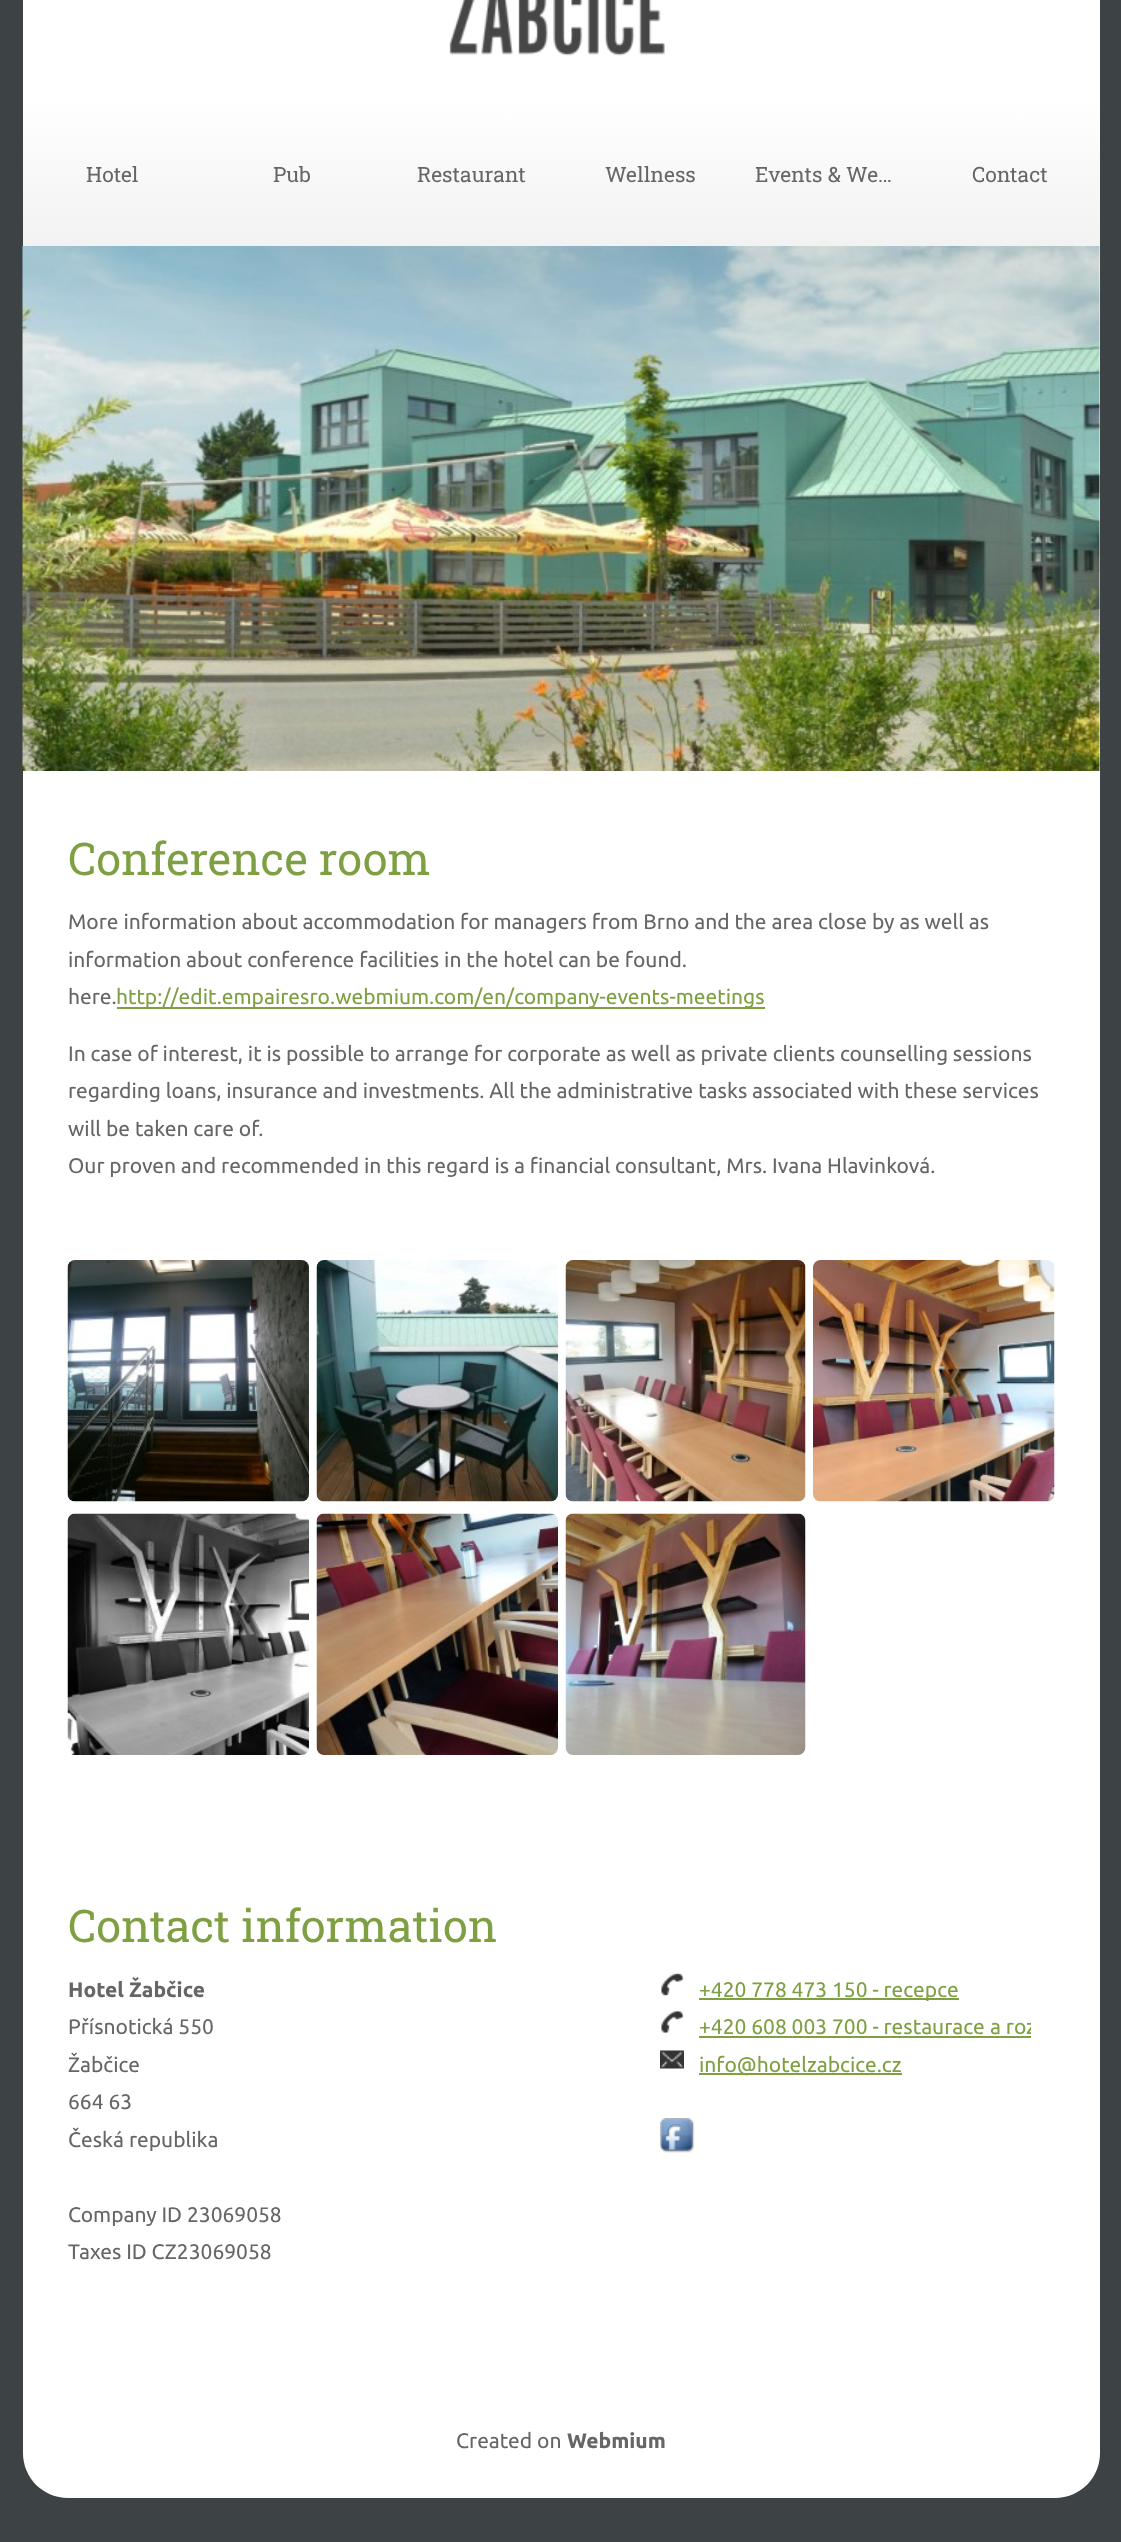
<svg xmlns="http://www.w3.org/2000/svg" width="1121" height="2542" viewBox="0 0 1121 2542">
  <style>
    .t1 { font: 21px Roboto Slab; fill: #666; }
    .t2 { font: 45px Roboto Slab; fill: #7ea042; }
    .t3 { font: 21px Ubuntu; fill: #666; }
    .t4 { font: 21px Ubuntu; fill: #7ea042; }
    .t5 { font: bold 21px Ubuntu; fill: #666; }
  </style>
  <defs>
    <linearGradient id="g1" gradientUnits="userSpaceOnUse" x1="113" y1="99" x2="113" y2="246"><stop offset="0" stop-color="#fff"/><stop offset="1" stop-color="#f2f2f2"/></linearGradient>
    <linearGradient id="g2" gradientUnits="userSpaceOnUse" x1="292" y1="99" x2="292" y2="246"><stop offset="0" stop-color="#fff"/><stop offset="1" stop-color="#f2f2f2"/></linearGradient>
    <linearGradient id="g3" gradientUnits="userSpaceOnUse" x1="471" y1="99" x2="471" y2="246"><stop offset="0" stop-color="#fff"/><stop offset="1" stop-color="#f2f2f2"/></linearGradient>
    <linearGradient id="g4" gradientUnits="userSpaceOnUse" x1="651" y1="99" x2="651" y2="246"><stop offset="0" stop-color="#fff"/><stop offset="1" stop-color="#f2f2f2"/></linearGradient>
    <linearGradient id="g5" gradientUnits="userSpaceOnUse" x1="830" y1="99" x2="830" y2="246"><stop offset="0" stop-color="#fff"/><stop offset="1" stop-color="#f2f2f2"/></linearGradient>
    <linearGradient id="g6" gradientUnits="userSpaceOnUse" x1="1010" y1="99" x2="1010" y2="246"><stop offset="0" stop-color="#fff"/><stop offset="1" stop-color="#f2f2f2"/></linearGradient>
    <clipPath id="clip1"><rect x="660" y="2009" width="371" height="37"/></clipPath>
  </defs>
  <rect width="100%" height="100%" fill="#3d4245"/>
  <rect x="23" y="0" width="1077" height="99" fill="#fff"/>
  <image x="449" y="0" width="216" height="56" href="images/1.png"/>
  <rect x="23" y="246" width="1077" height="2139" fill="#fff"/>
  <rect x="23" y="99" width="180" height="147" fill="url(#g1)"/>
  <text x="86" y="182" class="t1">Hotel</text>
  <rect x="203" y="99" width="178" height="147" fill="url(#g2)"/>
  <text x="273" y="182" class="t1">Pub</text>
  <rect x="381" y="99" width="180" height="147" fill="url(#g3)"/>
  <text x="417" y="182" class="t1">Restaurant</text>
  <rect x="561" y="99" width="180" height="147" fill="url(#g4)"/>
  <text x="605" y="182" class="t1">Wellness</text>
  <rect x="741" y="99" width="179" height="147" fill="url(#g5)"/>
  <text x="755" y="182" class="t1">Events &amp; We…</text>
  <rect x="920" y="99" width="180" height="147" fill="url(#g6)"/>
  <text x="972" y="182" class="t1">Contact</text>
  <image x="22" y="246" width="1078" height="525" href="images/2.png"/>
  <text x="68" y="875" class="t2">Conference room</text>
  <text x="68" y="929" class="t3">More information about accommodation for managers from Brno and the area close by as well as</text>
  <text x="68" y="967" class="t3">information about conference facilities in the hotel can be found.</text>
  <text x="68" y="1004" class="t3">here.</text>
  <rect x="117" y="1007" width="648" height="2" fill="#7ea042"/>
  <text x="116" y="1004" class="t4">http://edit.empairesro.webmium.com/en/company-events-meetings</text>
  <text x="68" y="1061" class="t3">In case of interest, it is possible to arrange for corporate as well as private clients counselling sessions</text>
  <text x="68" y="1098" class="t3">regarding loans, insurance and investments. All the administrative tasks associated with these services</text>
  <text x="68" y="1136" class="t3">will be taken care of.</text>
  <text x="68" y="1173" class="t3">Our proven and recommended in this regard is a financial consultant, Mrs. Ivana Hlavinková.</text>
  <image x="67" y="1260" width="242" height="242" href="images/3.png"/>
  <image x="316" y="1260" width="242" height="242" href="images/4.png"/>
  <image x="565" y="1260" width="241" height="242" href="images/5.png"/>
  <image x="813" y="1260" width="242" height="242" href="images/6.png"/>
  <image x="67" y="1513" width="242" height="242" href="images/7.png"/>
  <image x="316" y="1513" width="242" height="242" href="images/8.png"/>
  <image x="565" y="1513" width="241" height="242" href="images/9.png"/>
  <text x="68" y="1942" class="t2">Contact information</text>
  <text x="68" y="1997" class="t5">Hotel Žabčice</text>
  <text x="68" y="2034" class="t3">Přísnotická 550</text>
  <text x="68" y="2072" class="t3">Žabčice</text>
  <text x="68" y="2109" class="t3">664 63</text>
  <text x="68" y="2147" class="t3">Česká republika</text>
  <image x="661" y="1972" width="23" height="25" href="images/10.png"/>
  <rect x="699" y="1998" width="260" height="2" fill="#7ea042"/>
  <text x="699" y="1997" class="t4">+420 778 473 150 - recepce</text>
  <image x="661" y="2010" width="23" height="24" href="images/11.png"/>
  <text x="699" y="2034" class="t4">+420 608 003 700 - restaurace</text>
  <g clip-path="url(#clip1)">
    <text x="990" y="2034" class="t4">a roz</text>
  </g>
  <rect x="699" y="2036" width="332" height="2" fill="#7ea042"/>
  <image x="660" y="2050" width="24" height="19" href="images/12.png"/>
  <rect x="699" y="2073" width="203" height="2" fill="#7ea042"/>
  <text x="699" y="2072" class="t4">info@hotelzabcice.cz</text>
  <image x="660" y="2118" width="35" height="35" href="images/13.png"/>
  <text x="68" y="2222" class="t3">Company ID 23069058</text>
  <text x="68" y="2259" class="t3">Taxes ID CZ23069058</text>
  <path d="M23 2385H1100V2453C1100 2478 1080 2498 1055 2498H68C43 2498 23 2478 23 2453Z" fill="#fff"/>
  <text x="456" y="2448" class="t3">Created on</text>
  <text x="567" y="2448" class="t5">Webmium</text>
</svg>
